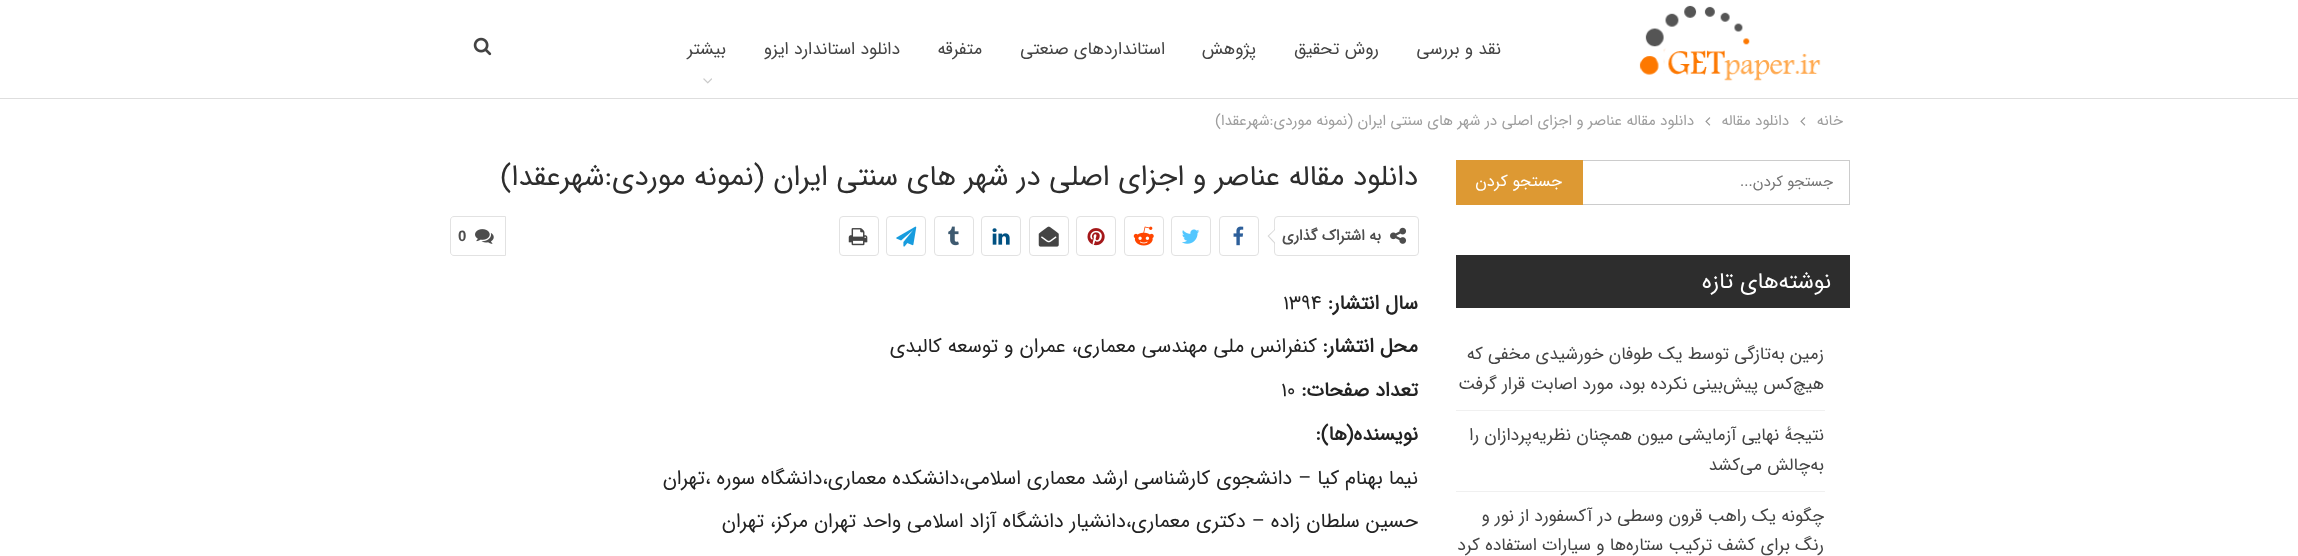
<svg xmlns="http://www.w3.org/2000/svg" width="2298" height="556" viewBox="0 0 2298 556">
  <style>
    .t1 { font: 17.5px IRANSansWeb; direction: rtl; fill: #444; }
    .t2 { font: 15px IRANSansWeb; direction: rtl; fill: #9e9e9e; }
    .t3 { font: 15px IRANSansWeb; direction: rtl; fill: #757575; }
    .t4 { font: 16.25px IRANSansWeb; direction: rtl; fill: #fff; }
    .t5 { font: 22.5px IRANSansWeb; direction: rtl; fill: #fff; }
    .t6 { font: 28.75px IRANSansWeb; direction: rtl; fill: #2d2d2d; }
    .t7 { font: bold 15px IRANSansWeb; direction: rtl; fill: #4d4d4d; }
    .t8 { font: bold 15px Liberation Sans; fill: #4d4d4d; }
    .t9 { font: bold 20px IRANSansWeb; direction: rtl; fill: #222; }
    .t10 { font: 20px IRANSansWeb; fill: #222; }
    .t11 { font: 20px IRANSansWeb; direction: rtl; fill: #222; }
  </style>
  <rect width="100%" height="100%" fill="#fff"/>
  <rect x="0" y="98" width="2298" height="1" fill="#dedede"/>
  <image x="1639" y="5" width="182" height="76" href="images/1.png"/>
  <text x="1501" y="54" class="t1">نقد و بررسی</text>
  <text x="1379" y="54" class="t1">روش تحقیق</text>
  <text x="1256" y="54" class="t1">پژوهش</text>
  <text x="1165" y="54" class="t1">استانداردهای صنعتی</text>
  <text x="982" y="54" class="t1">متفرقه</text>
  <text x="900" y="54" class="t1">دانلود استاندارد ایزو</text>
  <text x="726" y="54" class="t1">بیشتر</text>
  <image x="703" y="78" width="9" height="6" href="images/2.png"/>
  <image x="473" y="37" width="19" height="19" href="images/3.png"/>
  <text x="1843" y="125" class="t2">خانه</text>
  <image x="1800" y="117" width="6" height="9" href="images/4.png"/>
  <text x="1789" y="125" class="t2">دانلود مقاله</text>
  <image x="1705" y="117" width="6" height="9" href="images/4.png"/>
  <text x="1694" y="125" class="t2">دانلود مقاله عناصر و اجزای اصلی در شهر های سنتی ایران (نمونه موردی:شهرعقدا)</text>
  <rect x="1456.5" y="160.5" width="393" height="44" fill="none" stroke="#ccc"/>
  <text x="1833" y="186" class="t3">جستجو کردن...</text>
  <rect x="1456" y="160" width="127" height="45" fill="#d93"/>
  <text x="1562" y="186" class="t4">جستجو کردن</text>
  <rect x="1456" y="255" width="394" height="53" fill="#2d2d2d"/>
  <text x="1831" y="288" class="t5">نوشته‌های تازه</text>
  <rect x="1456" y="410" width="369" height="1" fill="#f0f0f0"/>
  <text x="1824" y="359" class="t1">زمین به‌تازگی توسط یک طوفان خورشیدی مخفی که</text>
  <text x="1824" y="389" class="t1">هیچ‌کس پیش‌بینی نکرده بود، مورد اصابت قرار گرفت</text>
  <rect x="1456" y="491" width="369" height="1" fill="#f0f0f0"/>
  <text x="1824" y="440" class="t1">نتیجهٔ نهایی آزمایشی میون همچنان نظریه‌پردازان را</text>
  <text x="1824" y="470" class="t1">به‌چالش می‌کشد</text>
  <text x="1824" y="521" class="t1">چگونه یک راهب قرون وسطی در آکسفورد از نور و</text>
  <text x="1824" y="550" class="t1">رنگ برای کشف ترکیب ستاره‌ها و سیارات استفاده کرد</text>
  <text x="1418" y="185" class="t6">دانلود مقاله عناصر و اجزای اصلی در شهر های سنتی ایران (نمونه موردی:شهرعقدا)</text>
  <rect x="1274.5" y="216.5" width="144" height="39" rx="3.5" fill="none" stroke="#e2e2e2"/>
  <image x="1390" y="227" width="17" height="17" href="images/5.png"/>
  <text x="1381" y="240" class="t7">به اشتراک گذاری</text>
  <path d="M1275 229V244L1267.5 236Z" fill="#d7d7d7"/>
  <path d="M1275 230V242.5L1269 236Z" fill="#fff"/>
  <rect x="1219.5" y="216.5" width="39" height="39" rx="3.5" fill="none" stroke="#e2e2e2"/>
  <image x="1233" y="226" width="11" height="20" href="images/6.png"/>
  <rect x="1171.5" y="216.5" width="39" height="39" rx="3.5" fill="none" stroke="#e2e2e2"/>
  <image x="1182" y="229" width="18" height="15" href="images/7.png"/>
  <rect x="1124.5" y="216.5" width="39" height="39" rx="3.5" fill="none" stroke="#e2e2e2"/>
  <image x="1133" y="226" width="21" height="20" href="images/8.png"/>
  <rect x="1076.5" y="216.5" width="39" height="39" rx="3.5" fill="none" stroke="#e2e2e2"/>
  <image x="1087" y="228" width="18" height="18" href="images/9.png"/>
  <rect x="1029.5" y="216.5" width="39" height="39" rx="3.5" fill="none" stroke="#e2e2e2"/>
  <image x="1038" y="226" width="21" height="21" href="images/10.png"/>
  <rect x="981.5" y="216.5" width="39" height="39" rx="3.5" fill="none" stroke="#e2e2e2"/>
  <image x="992" y="228" width="18" height="17" href="images/11.png"/>
  <rect x="934.5" y="216.5" width="39" height="39" rx="3.5" fill="none" stroke="#e2e2e2"/>
  <image x="948" y="226" width="11" height="20" href="images/12.png"/>
  <rect x="886.5" y="216.5" width="39" height="39" rx="3.5" fill="none" stroke="#e2e2e2"/>
  <image x="896" y="226" width="21" height="21" href="images/13.png"/>
  <rect x="839.5" y="216.5" width="39" height="39" rx="3.5" fill="none" stroke="#e2e2e2"/>
  <image x="848" y="228" width="20" height="18" href="images/14.png"/>
  <path d="M454 216.5H505.5V255.5H454C452 255.5 450.5 254 450.5 252V220C450.5 218 452 216.5 454 216.5Z" fill="none" stroke="#e2e2e2"/>
  <image x="475" y="229" width="19" height="15" href="images/15.png"/>
  <text x="458" y="241" class="t8">0</text>
  <text x="1418" y="309" class="t9">سال انتشار:</text>
  <text x="1283" y="309" class="t10">۱۳۹۴</text>
  <text x="1418" y="352" class="t9">محل انتشار:</text>
  <text x="1317" y="352" class="t11">کنفرانس ملی مهندسی معماری، عمران و توسعه کالبدی</text>
  <text x="1418" y="396" class="t9">تعداد صفحات:</text>
  <text x="1281" y="396" class="t10">۱۰</text>
  <text x="1418" y="440" class="t9">نویسنده(ها):</text>
  <text x="1418" y="484" class="t11">نیما بهنام کیا – دانشجوی کارشناسی ارشد معماری اسلامی،دانشکده معماری،دانشگاه سوره ،تهران</text>
  <text x="1418" y="527" class="t11">حسین سلطان زاده – دکتری معماری،دانشیار دانشگاه آزاد اسلامی واحد تهران مرکز، تهران</text>
</svg>
